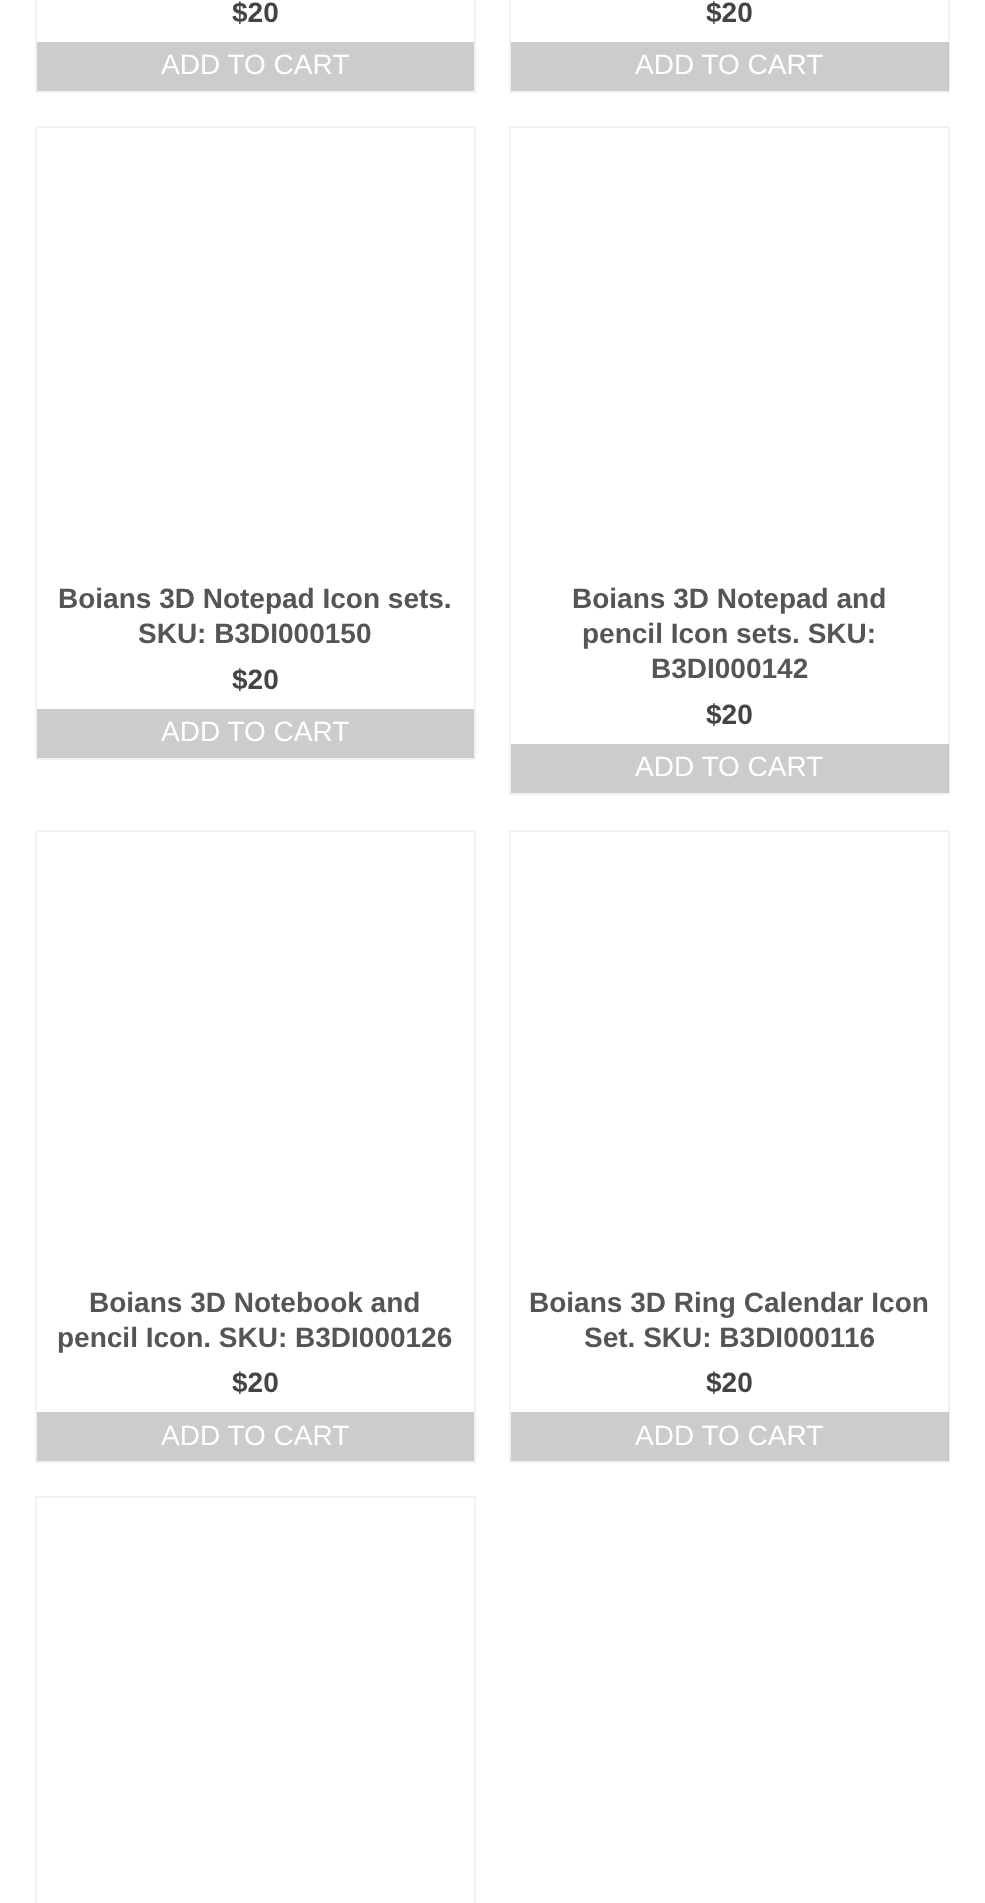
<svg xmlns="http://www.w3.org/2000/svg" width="985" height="1903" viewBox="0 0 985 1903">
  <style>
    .t1 { font: bold 28px Liberation Sans; fill: #444; }
    .t2 { font: 28px Liberation Sans; fill: #fff; }
    .t3 { font: bold 28px Liberation Sans; fill: #555; }
  </style>
  <rect width="100%" height="100%" fill="#fff"/>
  <rect x="36" y="-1" width="439" height="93" fill="none" stroke="#f2f2f2" stroke-width="2"/>
  <text x="232" y="22" class="t1">$20</text>
  <rect x="37" y="42" width="437" height="49" fill="#ccc"/>
  <text x="161" y="74" class="t2">ADD TO CART</text>
  <rect x="510" y="-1" width="439" height="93" fill="none" stroke="#f2f2f2" stroke-width="2"/>
  <text x="706" y="22" class="t1">$20</text>
  <rect x="511" y="42" width="438" height="49" fill="#00000033"/>
  <text x="635" y="74" class="t2">ADD TO CART</text>
  <rect x="36" y="127" width="439" height="632" fill="none" stroke="#f2f2f2" stroke-width="2"/>
  <text x="58" y="608" class="t3">Boians 3D Notepad Icon sets.</text>
  <text x="138" y="643" class="t3">SKU: B3DI000150</text>
  <text x="232" y="689" class="t1">$20</text>
  <rect x="37" y="709" width="437" height="49" fill="#ccc"/>
  <text x="161" y="741" class="t2">ADD TO CART</text>
  <rect x="510" y="127" width="439" height="667" fill="none" stroke="#f2f2f2" stroke-width="2"/>
  <text x="572" y="608" class="t3">Boians 3D Notepad and</text>
  <text x="582" y="643" class="t3">pencil Icon sets. SKU:</text>
  <text x="651" y="678" class="t3">B3DI000142</text>
  <text x="706" y="724" class="t1">$20</text>
  <rect x="511" y="744" width="438" height="49" fill="#00000033"/>
  <text x="635" y="776" class="t2">ADD TO CART</text>
  <rect x="36" y="831" width="439" height="631" fill="none" stroke="#f2f2f2" stroke-width="2"/>
  <text x="89" y="1312" class="t3">Boians 3D Notebook and</text>
  <text x="57" y="1347" class="t3">pencil Icon. SKU: B3DI000126</text>
  <text x="232" y="1392" class="t1">$20</text>
  <rect x="37" y="1412" width="437" height="49" fill="#ccc"/>
  <text x="161" y="1445" class="t2">ADD TO CART</text>
  <rect x="510" y="831" width="439" height="631" fill="none" stroke="#f2f2f2" stroke-width="2"/>
  <text x="529" y="1312" class="t3">Boians 3D Ring Calendar Icon</text>
  <text x="584" y="1347" class="t3">Set. SKU: B3DI000116</text>
  <text x="706" y="1392" class="t1">$20</text>
  <rect x="511" y="1412" width="438" height="49" fill="#00000033"/>
  <text x="635" y="1445" class="t2">ADD TO CART</text>
  <rect x="36" y="1497" width="439" height="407" fill="none" stroke="#f2f2f2" stroke-width="2"/>
</svg>
